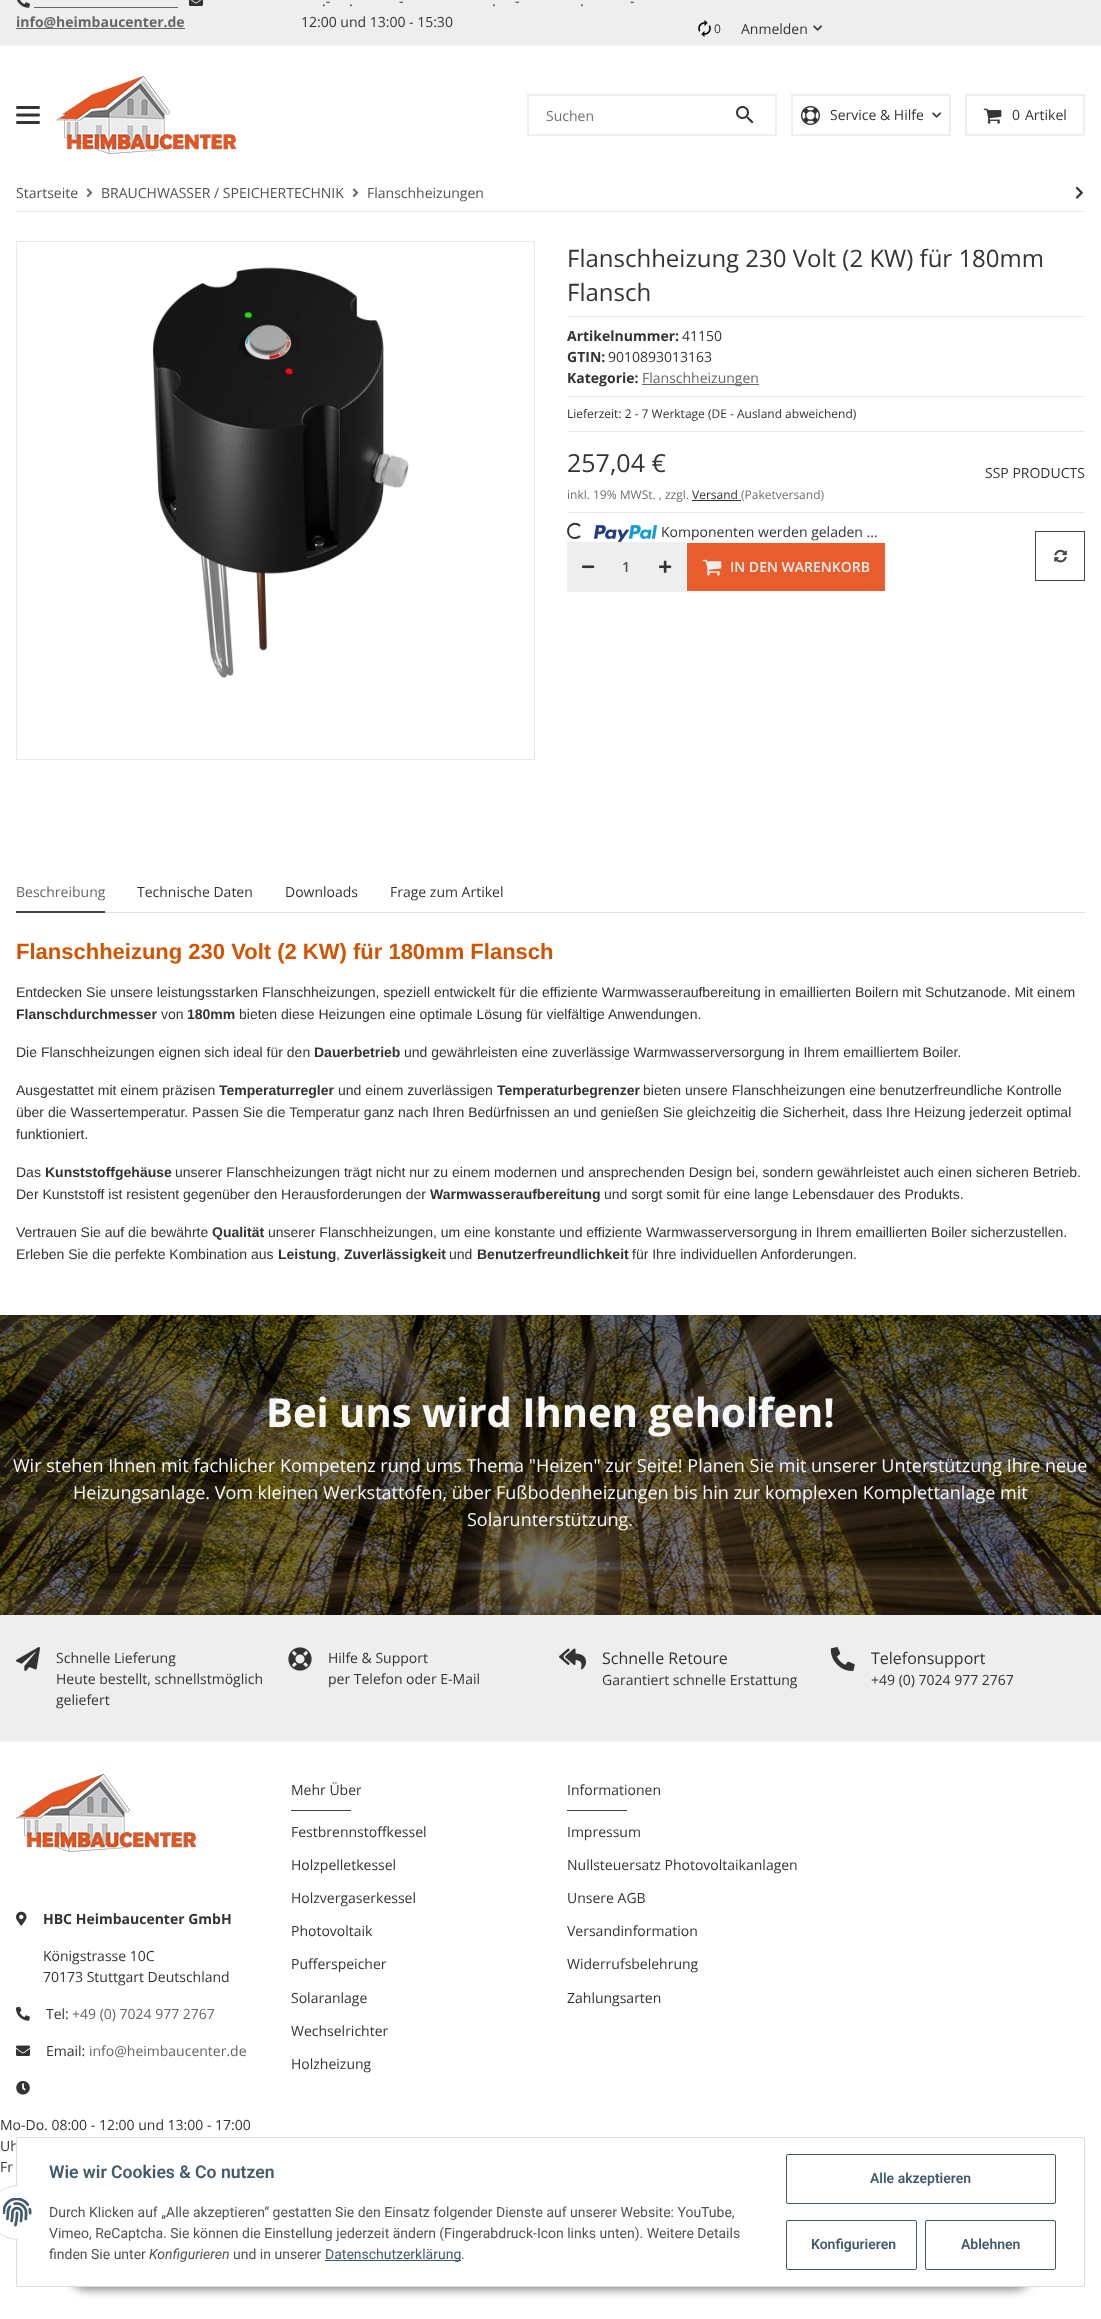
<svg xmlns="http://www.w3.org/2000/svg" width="1101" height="2319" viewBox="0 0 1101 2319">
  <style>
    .t1 { font: bold 14px Open Sans; fill: #666; }
    .t2 { font: 14px Open Sans; fill: #333; }
    .t3 { font: 12px Open Sans; fill: #333; }
    .t4 { font: 14px Open Sans; fill: #707070; }
    .t5 { font: 14px Open Sans; fill: #525252; }
    .t6 { font: 24px Open Sans; fill: #333; }
    .t7 { font: bold 14px Open Sans; fill: #333; }
    .t8 { font: 14px Open Sans; fill: #666; }
    .t9 { font: 25px Open Sans; fill: #333; }
    .t10 { font: 12px Open Sans; fill: #707070; }
    .t11 { font: 600 14px Open Sans; fill: #525252; }
    .t12 { font: 600 14px Open Sans; fill: #eee; }
    .t13 { font: bold 22px Liberation Sans; fill: #d35400; }
    .t14 { font: 14px Liberation Sans; fill: #333; }
    .t15 { font: bold 14px Liberation Sans; fill: #333; }
    .t16 { font: bold 40px Open Sans; fill: #f7f7f7; }
    .t17 { font: 18px Open Sans; fill: #f7f7f7; }
    .t18 { font: 16px Open Sans; fill: #333; }
    .t19 { font: 600 17.6px Roboto; fill: #435a6b; }
    .t20 { font: 14px Roboto; fill: #525252; }
    .t21 { font: italic 14px Roboto; fill: #525252; }
    .t22 { font: 14px Roboto; fill: #435a6b; }
    .t23 { font: 600 14px Roboto; fill: #435a6b; }
  </style>
  <rect width="100%" height="100%" fill="#fff"/>
  <rect x="0" y="0" width="1101" height="46" fill="#eee"/>
  <image x="17" y="0" width="13" height="8" href="images/1.png"/>
  <image x="189" y="0" width="14" height="6" href="images/2.png"/>
  <rect x="34" y="7" width="144" height="1" fill="#666"/>
  <rect x="16" y="28" width="169" height="1" fill="#666"/>
  <text x="16" y="27" class="t1">info@heimbaucenter.de</text>
  <text x="322" y="6" class="t2">.-</text>
  <text x="399" y="6" class="t2">-</text>
  <text x="515" y="6" class="t2">-</text>
  <text x="630" y="6" class="t2">-</text>
  <text x="349" y="6" class="t2">.</text>
  <text x="492" y="6" class="t2">.</text>
  <text x="580" y="6" class="t2">.</text>
  <text x="301" y="27" class="t2">12:00 und 13:00 - 15:30</text>
  <image x="698" y="20" width="13" height="17" href="images/3.png"/>
  <text x="714" y="33" class="t3">0</text>
  <text x="741" y="34" class="t2">Anmelden</text>
  <image x="813" y="25" width="9" height="6" href="images/4.png"/>
  <image x="16" y="106" width="24" height="18" href="images/5.png"/>
  <image x="56" y="76" width="180" height="78" href="images/6.png"/>
  <rect x="528" y="95" width="248" height="40" fill="none" stroke="#eee" stroke-width="2"/>
  <text x="546" y="121" class="t4">Suchen</text>
  <image x="736" y="106" width="18" height="18" href="images/7.png"/>
  <rect x="792" y="95" width="158" height="40" fill="none" stroke="#eee" stroke-width="2"/>
  <image x="801" y="106" width="19" height="19" href="images/8.png"/>
  <text x="830" y="120" class="t2">Service &amp; Hilfe</text>
  <image x="932" y="112" width="9" height="6" href="images/9.png"/>
  <rect x="966" y="95" width="118" height="40" fill="none" stroke="#eee" stroke-width="2"/>
  <image x="983" y="108" width="19" height="16" href="images/10.png"/>
  <text x="1012" y="120" class="t2">0</text>
  <text x="1025" y="120" class="t2">Artikel</text>
  <text x="16" y="198" class="t5">Startseite</text>
  <image x="86" y="188" width="7" height="9" href="images/11.png"/>
  <text x="101" y="198" class="t5">BRAUCHWASSER / SPEICHERTECHNIK</text>
  <image x="352" y="188" width="7" height="9" href="images/11.png"/>
  <text x="367" y="198" class="t5">Flanschheizungen</text>
  <image x="1075" y="186" width="8" height="13" href="images/12.png"/>
  <rect x="16" y="211" width="1069" height="1" fill="#e9e9e9"/>
  <rect x="16.5" y="241.5" width="518" height="518" fill="none" stroke="#e9e9e9"/>
  <image x="152" y="267" width="257" height="411" href="images/13.png"/>
  <rect x="567" y="316" width="518" height="1" fill="#e9e9e9"/>
  <text x="567" y="267" class="t6">Flanschheizung 230 Volt (2 KW) für 180mm</text>
  <text x="567" y="301" class="t6">Flansch</text>
  <rect x="567" y="396" width="518" height="1" fill="#e9e9e9"/>
  <text x="567" y="341" class="t7">Artikelnummer:</text>
  <text x="682" y="341" class="t2">41150</text>
  <text x="567" y="362" class="t7">GTIN:</text>
  <text x="608" y="362" class="t2">9010893013163</text>
  <text x="567" y="383" class="t7">Kategorie:</text>
  <rect x="642" y="384" width="117" height="1" fill="#666"/>
  <text x="642" y="383" class="t8">Flanschheizungen</text>
  <rect x="567" y="431" width="518" height="1" fill="#e9e9e9"/>
  <text x="567" y="418" class="t3">Lieferzeit: 2 - 7 Werktage (DE - Ausland abweichend)</text>
  <rect x="567" y="512" width="518" height="1" fill="#e9e9e9"/>
  <text x="567" y="472" class="t9">257,04 €</text>
  <text x="567" y="499" class="t10">inkl. 19% MWSt. , zzgl.</text>
  <text x="692" y="499" class="t3">Versand</text>
  <rect x="692" y="500" width="49" height="1" fill="#333"/>
  <text x="741" y="499" class="t10">(Paketversand)</text>
  <text x="985" y="478" class="t2">SSP PRODUCTS</text>
  <path d="M580 536C578.5 537.5 577 538 575 538C566.5 538 565.5 526 573.5 524C576 523.5 578.5 524.5 580 526" fill="none" stroke="#333" stroke-width="2"/>
  <image x="594" y="525" width="63" height="17" href="images/14.png"/>
  <text x="661" y="537" class="t2">Komponenten werden geladen ...</text>
  <rect x="567" y="542" width="119" height="50" fill="#eee"/>
  <image x="582" y="565" width="13" height="4" href="images/15.png"/>
  <text x="622" y="572" class="t11">1</text>
  <image x="659" y="560" width="13" height="13" href="images/16.png"/>
  <rect x="687" y="543" width="198" height="48" fill="#e95c2e"/>
  <image x="702" y="559" width="20" height="17" href="images/17.png"/>
  <text x="730" y="572" class="t12">IN DEN WARENKORB</text>
  <rect x="1035.5" y="531.5" width="49" height="49" fill="none" stroke="#444"/>
  <image x="1054" y="549" width="13" height="14" href="images/18.png"/>
  <rect x="105" y="912" width="980" height="1" fill="#dee2e6"/>
  <text x="16" y="897" class="t8">Beschreibung</text>
  <rect x="16" y="911" width="89" height="2" fill="#444"/>
  <text x="137" y="897" class="t2">Technische Daten</text>
  <text x="285" y="897" class="t2">Downloads</text>
  <text x="390" y="897" class="t2">Frage zum Artikel</text>
  <text x="16" y="959" class="t13">Flanschheizung 230 Volt (2 KW) für 180mm Flansch</text>
  <text x="16" y="997" class="t14">Entdecken Sie unsere leistungsstarken Flanschheizungen, speziell entwickelt für die effiziente Warmwasseraufbereitung in emaillierten Boilern mit Schutzanode. Mit einem</text>
  <text x="16" y="1019" class="t15">Flanschdurchmesser</text>
  <text x="161" y="1019" class="t14">von</text>
  <text x="187" y="1019" class="t15">180mm</text>
  <text x="239" y="1019" class="t14">bieten diese Heizungen eine optimale Lösung für vielfältige Anwendungen.</text>
  <text x="16" y="1057" class="t14">Die Flanschheizungen eignen sich ideal für den</text>
  <text x="314" y="1057" class="t15">Dauerbetrieb</text>
  <text x="404" y="1057" class="t14">und gewährleisten eine zuverlässige Warmwasserversorgung in Ihrem emailliertem Boiler.</text>
  <text x="16" y="1095" class="t14">Ausgestattet mit einem präzisen</text>
  <text x="219" y="1095" class="t15">Temperaturregler</text>
  <text x="338" y="1095" class="t14">und einem zuverlässigen</text>
  <text x="497" y="1095" class="t15">Temperaturbegrenzer</text>
  <text x="643" y="1095" class="t14">bieten unsere Flanschheizungen eine benutzerfreundliche Kontrolle</text>
  <text x="16" y="1117" class="t14">über die Wassertemperatur. Passen Sie die Temperatur ganz nach Ihren Bedürfnissen an und genießen Sie gleichzeitig die Sicherheit, dass Ihre Heizung jederzeit optimal</text>
  <text x="16" y="1139" class="t14">funktioniert.</text>
  <text x="16" y="1177" class="t14">Das</text>
  <text x="45" y="1177" class="t15">Kunststoffgehäuse</text>
  <text x="175" y="1177" class="t14">unserer Flanschheizungen trägt nicht nur zu einem modernen und ansprechenden Design bei, sondern gewährleistet auch einen sicheren Betrieb.</text>
  <text x="16" y="1199" class="t14">Der Kunststoff ist resistent gegenüber den Herausforderungen der</text>
  <text x="430" y="1199" class="t15">Warmwasseraufbereitung</text>
  <text x="604" y="1199" class="t14">und sorgt somit für eine lange Lebensdauer des Produkts.</text>
  <text x="16" y="1237" class="t14">Vertrauen Sie auf die bewährte</text>
  <text x="212" y="1237" class="t15">Qualität</text>
  <text x="268" y="1237" class="t14">unserer Flanschheizungen, um eine konstante und effiziente Warmwasserversorgung in Ihrem emaillierten Boiler sicherzustellen.</text>
  <text x="16" y="1259" class="t14">Erleben Sie die perfekte Kombination aus</text>
  <text x="278" y="1259" class="t15">Leistung</text>
  <text x="336" y="1259" class="t14">,</text>
  <text x="344" y="1259" class="t15">Zuverlässigkeit</text>
  <text x="449" y="1259" class="t14">und</text>
  <text x="477" y="1259" class="t15">Benutzerfreundlichkeit</text>
  <text x="632" y="1259" class="t14">für Ihre individuellen Anforderungen.</text>
  <image x="0" y="1315" width="1101" height="300" href="images/19.png"/>
  <text x="266" y="1427" class="t16">Bei uns wird Ihnen geholfen!</text>
  <text x="13" y="1472" class="t17">Wir stehen Ihnen mit fachlicher Kompetenz rund ums Thema "Heizen" zur Seite! Planen Sie mit unserer Unterstützung Ihre neue</text>
  <text x="73" y="1499" class="t17">Heizungsanlage. Vom kleinen Werkstattofen, über Fußbodenheizungen bis hin zur komplexen Komplettanlage mit</text>
  <text x="467" y="1526" class="t17">Solarunterstützung.</text>
  <rect x="0" y="1615" width="1101" height="127" fill="#eee"/>
  <image x="16" y="1647" width="24" height="24" href="images/20.png"/>
  <text x="56" y="1663" class="t2">Schnelle Lieferung</text>
  <text x="56" y="1684" class="t2">Heute bestellt, schnellstmöglich</text>
  <text x="56" y="1705" class="t2">geliefert</text>
  <image x="288" y="1647" width="24" height="24" href="images/21.png"/>
  <text x="328" y="1663" class="t2">Hilfe &amp; Support</text>
  <text x="328" y="1684" class="t2">per Telefon oder E-Mail</text>
  <image x="559" y="1648" width="27" height="22" href="images/22.png"/>
  <text x="602" y="1664" class="t18">Schnelle Retoure</text>
  <text x="602" y="1685" class="t2">Garantiert schnelle Erstattung</text>
  <image x="830" y="1647" width="25" height="24" href="images/23.png"/>
  <text x="871" y="1664" class="t18">Telefonsupport</text>
  <text x="871" y="1685" class="t2">+49 (0) 7024 977 2767</text>
  <image x="16" y="1774" width="180" height="78" href="images/24.png"/>
  <image x="16" y="1911" width="11" height="15" href="images/25.png"/>
  <text x="43" y="1924" class="t7">HBC Heimbaucenter GmbH</text>
  <text x="43" y="1961" class="t2">Königstrasse 10C</text>
  <text x="43" y="1982" class="t2">70173 Stuttgart Deutschland</text>
  <image x="16" y="2006" width="14" height="15" href="images/26.png"/>
  <text x="46" y="2019" class="t2">Tel:</text>
  <text x="72" y="2019" class="t8">+49 (0) 7024 977 2767</text>
  <image x="16" y="2045" width="14" height="11" href="images/27.png"/>
  <text x="46" y="2056" class="t2">Email:</text>
  <text x="89" y="2056" class="t8">info@heimbaucenter.de</text>
  <image x="16" y="2081" width="14" height="14" href="images/28.png"/>
  <text x="0" y="2130" class="t2">Mo-Do. 08:00 - 12:00 und 13:00 - 17:00</text>
  <text x="0" y="2151" class="t2">Uh</text>
  <text x="0" y="2172" class="t2">Fr</text>
  <text x="291" y="1795" class="t2">Mehr Über</text>
  <rect x="291" y="1810" width="60" height="1" fill="#444"/>
  <text x="291" y="1837" class="t2">Festbrennstoffkessel</text>
  <text x="291" y="1870" class="t2">Holzpelletkessel</text>
  <text x="291" y="1903" class="t2">Holzvergaserkessel</text>
  <text x="291" y="1936" class="t2">Photovoltaik</text>
  <text x="291" y="1969" class="t2">Pufferspeicher</text>
  <text x="291" y="2003" class="t2">Solaranlage</text>
  <text x="291" y="2036" class="t2">Wechselrichter</text>
  <text x="291" y="2069" class="t2">Holzheizung</text>
  <text x="567" y="1795" class="t2">Informationen</text>
  <rect x="567" y="1810" width="60" height="1" fill="#444"/>
  <text x="567" y="1837" class="t2">Impressum</text>
  <text x="567" y="1870" class="t2">Nullsteuersatz Photovoltaikanlagen</text>
  <text x="567" y="1903" class="t2">Unsere AGB</text>
  <text x="567" y="1936" class="t2">Versandinformation</text>
  <text x="567" y="1969" class="t2">Widerrufsbelehrung</text>
  <text x="567" y="2003" class="t2">Zahlungsarten</text>
  <rect x="70" y="2258" width="961" height="32" rx="16" fill="#00000073" filter="blur(5px)"/>
  <rect x="16.5" y="2137.5" width="1068" height="149" rx="1.5" fill="#fff" stroke="#ddd"/>
  <circle cx="17.5" cy="2212.5" r="27" fill="#fff" stroke="#ddd"/>
  <rect x="18" y="2185" width="27" height="55" fill="#fff"/>
  <image x="3" y="2198" width="29" height="29" href="images/29.png"/>
  <text x="49" y="2178" class="t19">Wie wir Cookies &amp; Co nutzen</text>
  <text x="49" y="2217" class="t20">Durch Klicken auf „Alle akzeptieren“ gestatten Sie den Einsatz folgender Dienste auf unserer Website: YouTube,</text>
  <text x="49" y="2238" class="t20">Vimeo, ReCaptcha. Sie können die Einstellung jederzeit ändern (Fingerabdruck-Icon links unten). Weitere Details</text>
  <text x="49" y="2259" class="t20">finden Sie unter</text>
  <text x="149" y="2259" class="t21">Konfigurieren</text>
  <text x="233" y="2259" class="t20">und in unserer</text>
  <rect x="325" y="2260" width="136" height="1" fill="#435a6b"/>
  <text x="325" y="2259" class="t22">Datenschutzerklärung</text>
  <text x="461" y="2259" class="t20">.</text>
  <rect x="786.5" y="2154.5" width="269" height="49" rx="1.5" fill="none" stroke="#435a6b"/>
  <text x="870" y="2183" class="t23">Alle akzeptieren</text>
  <rect x="786.5" y="2220.5" width="130" height="49" rx="1.5" fill="none" stroke="#435a6b"/>
  <text x="811" y="2249" class="t23">Konfigurieren</text>
  <rect x="925.5" y="2220.5" width="130" height="49" rx="1.5" fill="none" stroke="#435a6b"/>
  <text x="961" y="2249" class="t23">Ablehnen</text>
</svg>
